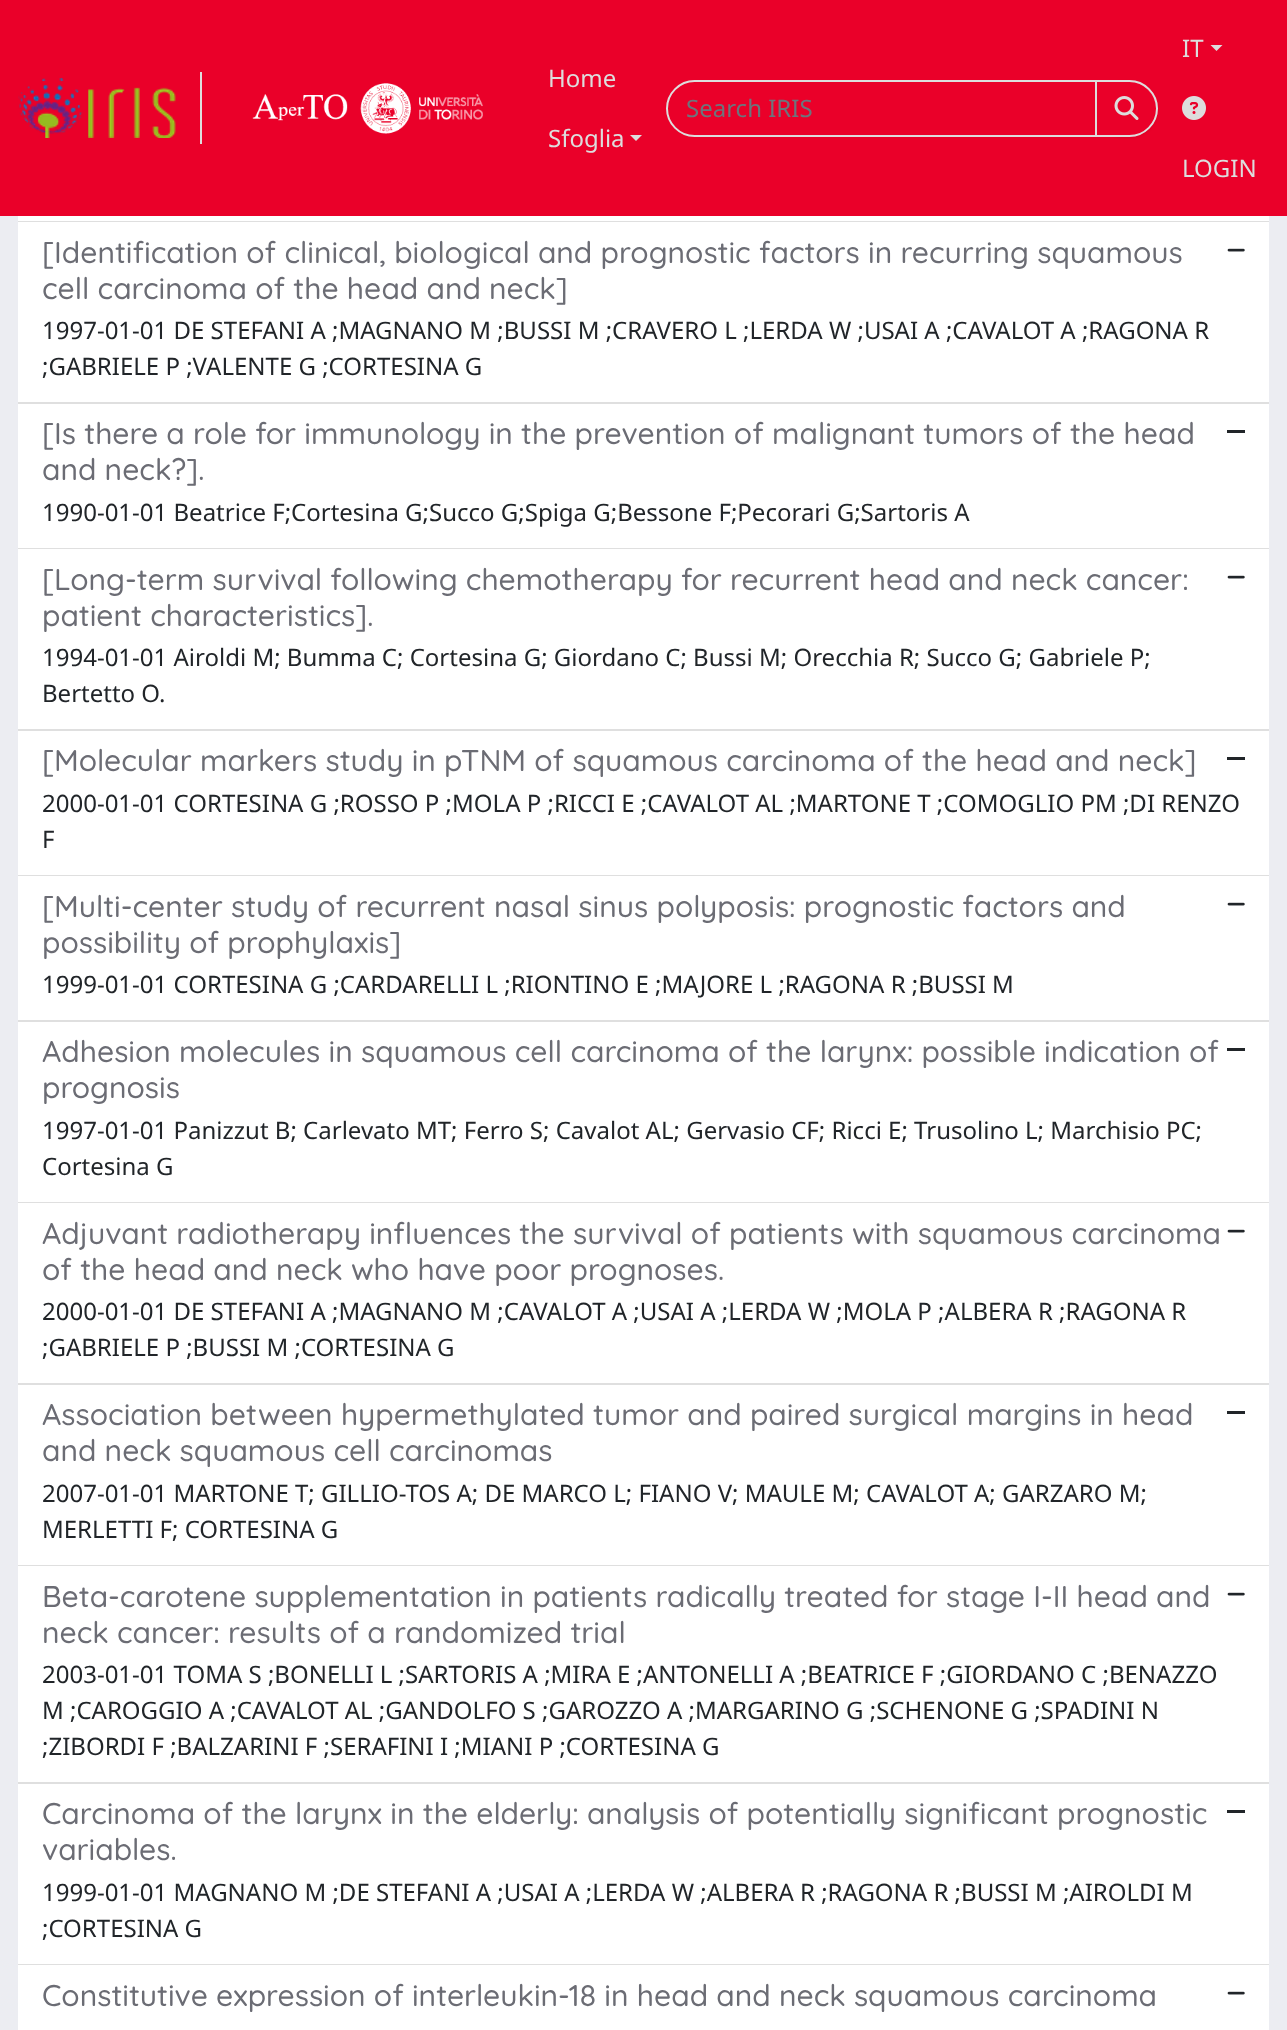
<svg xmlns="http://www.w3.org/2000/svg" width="1287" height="2030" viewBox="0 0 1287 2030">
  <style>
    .t1 { font: 24px Noto Sans; fill: #ddd; }
    .t2 { font: 24px Noto Sans; fill: #6c757d; }
    .t3 { font: 500 30px Quicksand; fill: #6b6c74; }
    .t4 { font: 24px Noto Sans; fill: #212529; }
  </style>
  <rect width="100%" height="100%" fill="#ecedf2"/>
  <rect x="0" y="0" width="1287" height="216" fill="#ea0029"/>
  <rect x="200" y="72" width="2" height="72" fill="#ddd"/>
  <image x="18" y="78" width="158" height="60" href="images/1.png"/>
  <image x="252" y="83" width="231" height="51" href="images/2.png"/>
  <text x="548" y="87" class="t1">Home</text>
  <text x="548" y="147" class="t1">Sfoglia</text>
  <path d="M630 135H642L636 141Z" fill="#ddd"/>
  <path d="M694.5 81H1096V136H694.5C679.5 136 667 123.5 667 108.5C667 93.5 679.5 81 694.5 81Z" fill="none" stroke="#ddd" stroke-width="2"/>
  <text x="686" y="117" class="t2">Search IRIS</text>
  <rect x="1095" y="81" width="63" height="57" rx="28.5" fill="#00000012" filter="blur(1px)"/>
  <path d="M1095 80H1129.5C1145 80 1158 93 1158 108.5C1158 124 1145 137 1129.5 137H1095Z" fill="#ea0029"/>
  <path d="M1097 81V82H1130C1144 82 1156 95 1156 110C1156 115 1154 120 1151 124C1165 107 1152 81 1130 81Z" fill="#ed2649"/>
  <path d="M1096 81H1129.5C1144.5 81 1157 93.5 1157 108.5C1157 123.5 1144.5 136 1129.5 136H1096Z" fill="none" stroke="#ddd" stroke-width="2"/>
  <image x="1114" y="96" width="25" height="24" href="images/3.png"/>
  <text x="1182" y="57" class="t1">IT</text>
  <path d="M1210.5 45H1222.5L1216.5 51Z" fill="#ddd"/>
  <image x="1182" y="96" width="24" height="24" href="images/4.png"/>
  <text x="1182" y="177" class="t1">LOGIN</text>
  <rect x="18" y="216" width="1251" height="1748" fill="#fff"/>
  <rect x="18" y="221" width="1251" height="1" fill="#dfdfdf"/>
  <rect x="18" y="402" width="1251" height="2" fill="#dfdfdf"/>
  <text x="42" y="263" class="t3">[Identification of clinical, biological and prognostic factors in recurring squamous</text>
  <text x="42" y="299" class="t3">cell carcinoma of the head and neck]</text>
  <image x="1227" y="248" width="18" height="4" href="images/5.png"/>
  <text x="42" y="339" class="t4">1997-01-01 DE STEFANI A ;MAGNANO M ;BUSSI M ;CRAVERO L ;LERDA W ;USAI A ;CAVALOT A ;RAGONA R</text>
  <text x="42" y="375" class="t4">;GABRIELE P ;VALENTE G ;CORTESINA G</text>
  <rect x="18" y="548" width="1251" height="1" fill="#dfdfdf"/>
  <text x="42" y="444" class="t3">[Is there a role for immunology in the prevention of malignant tumors of the head</text>
  <text x="42" y="480" class="t3">and neck?].</text>
  <rect x="1227" y="430" width="18" height="3" fill="#212529"/>
  <text x="42" y="521" class="t4">1990-01-01 Beatrice F;Cortesina G;Succo G;Spiga G;Bessone F;Pecorari G;Sartoris A</text>
  <rect x="18" y="729" width="1251" height="2" fill="#dfdfdf"/>
  <text x="42" y="590" class="t3">[Long-term survival following chemotherapy for recurrent head and neck cancer:</text>
  <text x="42" y="626" class="t3">patient characteristics].</text>
  <image x="1227" y="575" width="18" height="4" href="images/5.png"/>
  <text x="42" y="666" class="t4">1994-01-01 Airoldi M; Bumma C; Cortesina G; Giordano C; Bussi M; Orecchia R; Succo G; Gabriele P;</text>
  <text x="42" y="702" class="t4">Bertetto O.</text>
  <rect x="18" y="875" width="1251" height="1" fill="#dfdfdf"/>
  <text x="42" y="771" class="t3">[Molecular markers study in pTNM of squamous carcinoma of the head and neck]</text>
  <rect x="1227" y="757" width="18" height="3" fill="#212529"/>
  <text x="42" y="812" class="t4">2000-01-01 CORTESINA G ;ROSSO P ;MOLA P ;RICCI E ;CAVALOT AL ;MARTONE T ;COMOGLIO PM ;DI RENZO</text>
  <text x="42" y="848" class="t4">F</text>
  <rect x="18" y="1020" width="1251" height="2" fill="#dfdfdf"/>
  <text x="42" y="917" class="t3">[Multi-center study of recurrent nasal sinus polyposis: prognostic factors and</text>
  <text x="42" y="953" class="t3">possibility of prophylaxis]</text>
  <image x="1227" y="902" width="18" height="4" href="images/5.png"/>
  <text x="42" y="993" class="t4">1999-01-01 CORTESINA G ;CARDARELLI L ;RIONTINO E ;MAJORE L ;RAGONA R ;BUSSI M</text>
  <rect x="18" y="1202" width="1251" height="1" fill="#dfdfdf"/>
  <text x="42" y="1062" class="t3">Adhesion molecules in squamous cell carcinoma of the larynx: possible indication of</text>
  <text x="42" y="1098" class="t3">prognosis</text>
  <rect x="1227" y="1048" width="18" height="3" fill="#212529"/>
  <text x="42" y="1139" class="t4">1997-01-01 Panizzut B; Carlevato MT; Ferro S; Cavalot AL; Gervasio CF; Ricci E; Trusolino L; Marchisio PC;</text>
  <text x="42" y="1175" class="t4">Cortesina G</text>
  <rect x="18" y="1383" width="1251" height="2" fill="#dfdfdf"/>
  <text x="42" y="1244" class="t3">Adjuvant radiotherapy influences the survival of patients with squamous carcinoma</text>
  <text x="42" y="1280" class="t3">of the head and neck who have poor prognoses.</text>
  <image x="1227" y="1229" width="18" height="4" href="images/5.png"/>
  <text x="42" y="1320" class="t4">2000-01-01 DE STEFANI A ;MAGNANO M ;CAVALOT A ;USAI A ;LERDA W ;MOLA P ;ALBERA R ;RAGONA R</text>
  <text x="42" y="1356" class="t4">;GABRIELE P ;BUSSI M ;CORTESINA G</text>
  <rect x="18" y="1565" width="1251" height="1" fill="#dfdfdf"/>
  <text x="42" y="1425" class="t3">Association between hypermethylated tumor and paired surgical margins in head</text>
  <text x="42" y="1461" class="t3">and neck squamous cell carcinomas</text>
  <rect x="1227" y="1411" width="18" height="3" fill="#212529"/>
  <text x="42" y="1502" class="t4">2007-01-01 MARTONE T; GILLIO-TOS A; DE MARCO L; FIANO V; MAULE M; CAVALOT A; GARZARO M;</text>
  <text x="42" y="1538" class="t4">MERLETTI F; CORTESINA G</text>
  <rect x="18" y="1782" width="1251" height="2" fill="#dfdfdf"/>
  <text x="42" y="1607" class="t3">Beta-carotene supplementation in patients radically treated for stage I-II head and</text>
  <text x="42" y="1643" class="t3">neck cancer: results of a randomized trial</text>
  <image x="1227" y="1592" width="18" height="4" href="images/5.png"/>
  <text x="42" y="1683" class="t4">2003-01-01 TOMA S ;BONELLI L ;SARTORIS A ;MIRA E ;ANTONELLI A ;BEATRICE F ;GIORDANO C ;BENAZZO</text>
  <text x="42" y="1719" class="t4">M ;CAROGGIO A ;CAVALOT AL ;GANDOLFO S ;GAROZZO A ;MARGARINO G ;SCHENONE G ;SPADINI N</text>
  <text x="42" y="1755" class="t4">;ZIBORDI F ;BALZARINI F ;SERAFINI I ;MIANI P ;CORTESINA G</text>
  <rect x="18" y="1964" width="1251" height="1" fill="#dfdfdf"/>
  <text x="42" y="1824" class="t3">Carcinoma of the larynx in the elderly: analysis of potentially significant prognostic</text>
  <text x="42" y="1860" class="t3">variables.</text>
  <rect x="1227" y="1810" width="18" height="3" fill="#212529"/>
  <text x="42" y="1901" class="t4">1999-01-01 MAGNANO M ;DE STEFANI A ;USAI A ;LERDA W ;ALBERA R ;RAGONA R ;BUSSI M ;AIROLDI M</text>
  <text x="42" y="1937" class="t4">;CORTESINA G</text>
  <rect x="18" y="1965" width="1251" height="65" fill="#fff"/>
  <text x="42" y="2006" class="t3">Constitutive expression of interleukin-18 in head and neck squamous carcinoma</text>
  <image x="1227" y="1991" width="18" height="4" href="images/5.png"/>
</svg>
